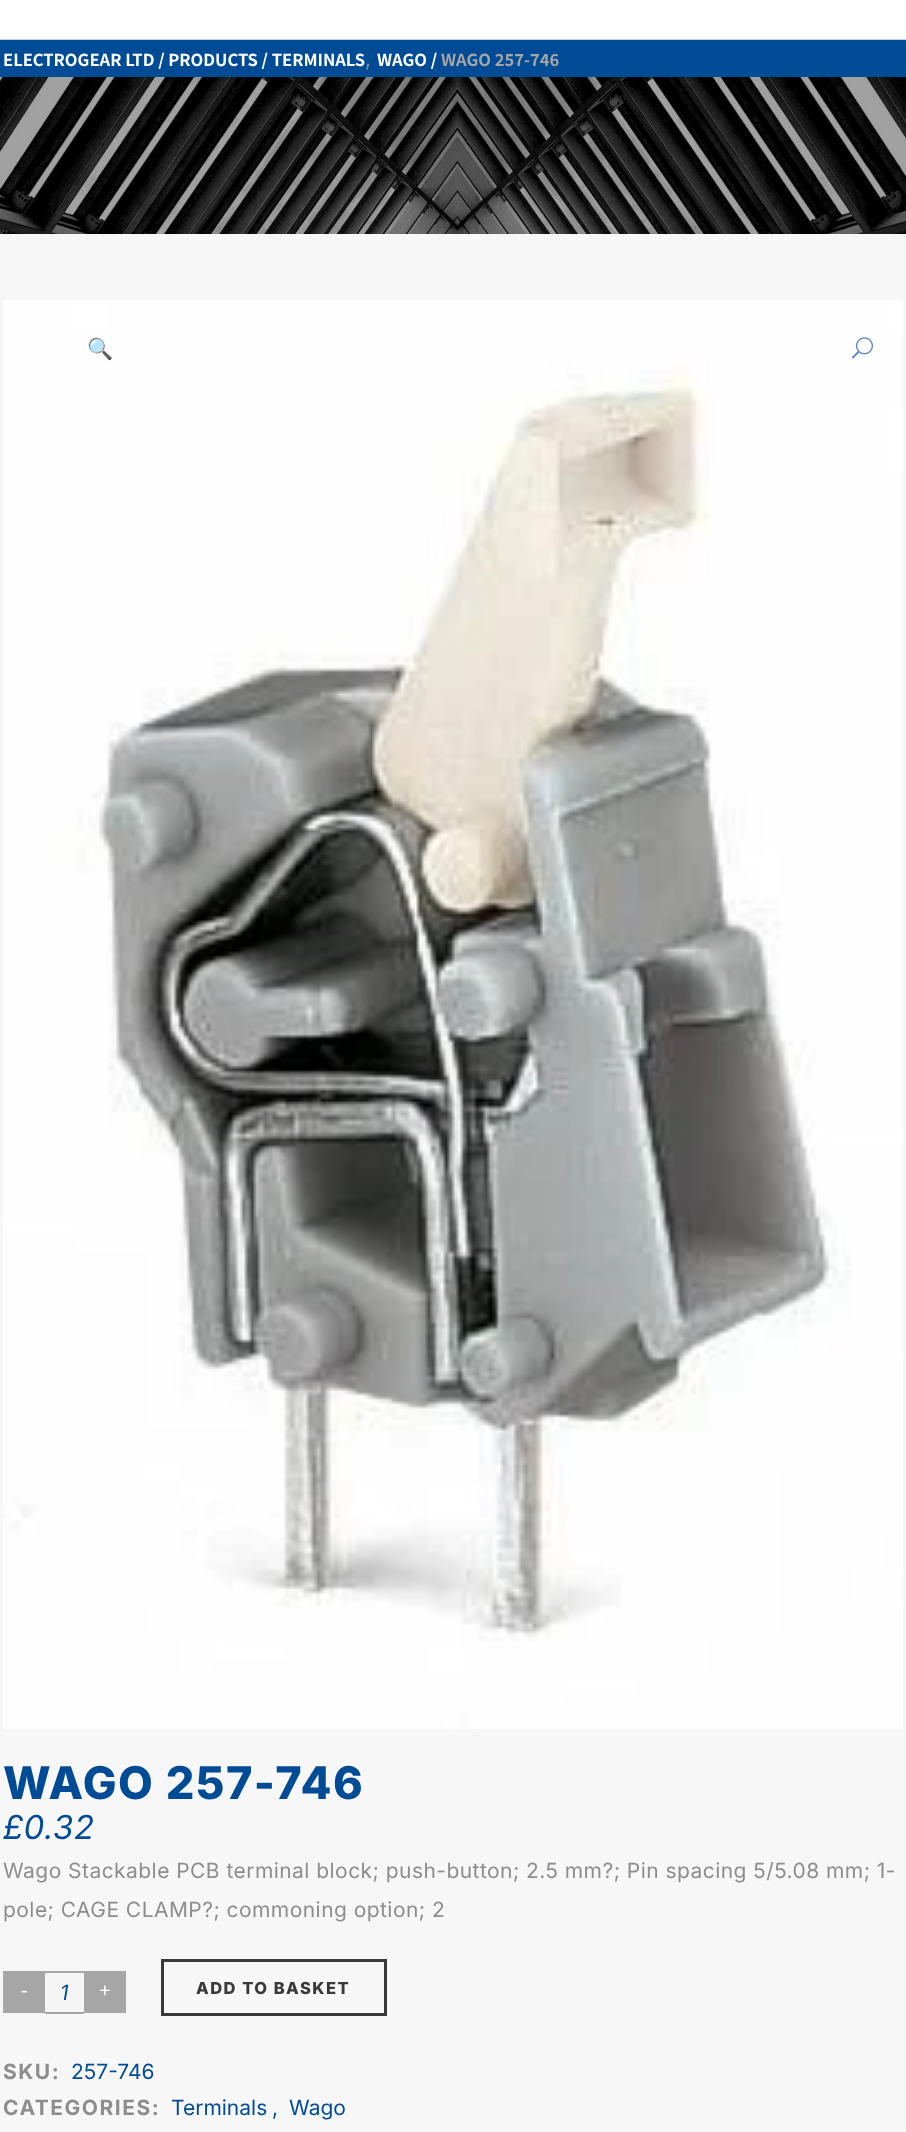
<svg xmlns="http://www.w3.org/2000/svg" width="906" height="2132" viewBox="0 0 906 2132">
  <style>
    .t1 { font: bold 16.5px Noto Sans KR; fill: #fff; }
    .t2 { font: 21px Inter; fill: #8d8d8d; }
    .t3 { font: bold 16.5px Noto Sans KR; fill: #a6a6a6; }
    .t4 { font: 21px Noto Color Emoji; fill: #5784c7; }
    .t5 { font: 800 45px Inter; letter-spacing: 1.5px; fill: #004b96; }
    .t6 { font: italic 33px Inter; letter-spacing: 0.45px; fill: #004b96; }
    .t7 { font: 21px Inter; letter-spacing: 0.45px; fill: #8d8d8d; }
    .t8 { font: 20px Liberation Sans; fill: #fff; }
    .t9 { font: italic 21px Inter; fill: #004b96; }
    .t10 { font: 800 16.5px Inter; letter-spacing: 1.5px; fill: #393939; }
    .t11 { font: bold 21px Inter; letter-spacing: 1.5px; fill: #8d8d8d; }
    .t12 { font: 21px Inter; fill: #004b96; }
  </style>
  <rect width="100%" height="100%" fill="#f7f7f7"/>
  <rect x="0" y="0" width="906" height="39" fill="#fff"/>
  <rect x="0" y="40" width="906" height="37" fill="#004b96"/>
  <rect x="0" y="39" width="906" height="1" fill="#bfd2e5"/>
  <text x="3" y="66" class="t1">ELECTROGEAR LTD / PRODUCTS / TERMINALS</text>
  <text x="365" y="66" class="t2">,</text>
  <text x="377" y="66" class="t1">WAGO /</text>
  <text x="441" y="66" class="t3">WAGO 257-746</text>
  <image x="0" y="77" width="906" height="157" href="images/1.png"/>
  <image x="3" y="299" width="900" height="1430" href="images/2.png"/>
  <text x="87" y="356" class="t4">🔍</text>
  <image x="852" y="337" width="21" height="22" href="images/3.png"/>
  <text x="3" y="1799" class="t5">WAGO 257-746</text>
  <text x="3" y="1839" class="t6">£0.32</text>
  <text x="3" y="1878" class="t7">Wago Stackable PCB terminal block; push-button; 2.5 mm?; Pin spacing 5/5.08 mm; 1-</text>
  <text x="3" y="1917" class="t7">pole; CAGE CLAMP?; commoning option; 2</text>
  <rect x="3" y="1971" width="123" height="42" fill="#a6a6a6"/>
  <text x="21" y="1997" class="t8">-</text>
  <rect x="45" y="1973" width="39" height="39" fill="#f5f5f5"/>
  <rect x="45" y="2013" width="39" height="1" fill="#a6a6a6"/>
  <text x="60" y="2000" class="t9">1</text>
  <text x="99" y="1997" class="t8">+</text>
  <rect x="162.5" y="1960.5" width="223" height="54" fill="none" stroke="#393939" stroke-width="3"/>
  <text x="196" y="1994" class="t10">ADD TO BASKET</text>
  <text x="3" y="2079" class="t11">SKU:</text>
  <text x="71" y="2079" class="t12">257-746</text>
  <text x="3" y="2115" class="t11">CATEGORIES:</text>
  <text x="171" y="2115" class="t12">Terminals</text>
  <text x="272" y="2115" class="t12">,</text>
  <text x="289" y="2115" class="t12">Wago</text>
</svg>
